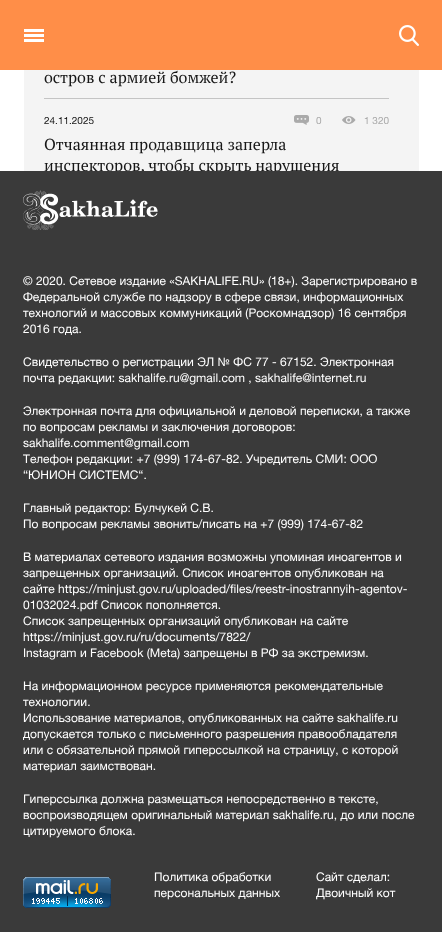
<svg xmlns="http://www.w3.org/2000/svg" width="442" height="932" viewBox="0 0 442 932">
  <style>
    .t1 { font: 16px PT Serif; fill: #171717; }
    .t2 { font: 10px Helvetica Neue; fill: #171717; }
    .t3 { font: 10px Helvetica Neue; fill: #aaa; }
    .t4 { font: 12px Helvetica Neue; fill: #fff; }
  </style>
  <defs>
    <clipPath id="clip1"><rect x="44" y="0" width="345" height="171"/></clipPath>
  </defs>
  <rect width="100%" height="100%" fill="#fff"/>
  <rect x="0" y="0" width="442" height="70" fill="#ff8e48"/>
  <rect x="24" y="34" width="20" height="3" fill="#fff"/>
  <rect x="24" y="29" width="20" height="3" fill="#fff"/>
  <rect x="24" y="39" width="20" height="3" fill="#fff"/>
  <image x="399" y="25" width="20" height="21" href="images/1.png"/>
  <rect x="24" y="70" width="395" height="101" fill="#f4f4f4"/>
  <text x="44" y="83" class="t1">остров с армией бомжей?</text>
  <rect x="44" y="98" width="345" height="1" fill="#c4c4c4"/>
  <text x="44" y="124" class="t2">24.11.2025</text>
  <image x="294" y="115" width="15" height="10" href="images/2.png"/>
  <text x="316" y="124" class="t3">0</text>
  <image x="342" y="116" width="14" height="8" href="images/3.png"/>
  <text x="364" y="124" class="t3">1 320</text>
  <text x="44" y="150" class="t1">Отчаянная продавщица заперла</text>
  <g clip-path="url(#clip1)">
    <text x="44" y="171" class="t1">инспекторов, чтобы скрыть нарушения</text>
  </g>
  <rect x="0" y="171" width="442" height="761" fill="#3a3a3a"/>
  <image x="23" y="190" width="135" height="40" href="images/4.png"/>
  <text x="23" y="285" class="t4">© 2020. Сетевое издание «SAKHALIFE.RU» (18+). Зарегистрировано в</text>
  <text x="23" y="301" class="t4">Федеральной службе по надзору в сфере связи, информационных</text>
  <text x="23" y="317" class="t4">технологий и массовых коммуникаций (Роскомнадзор) 16 сентября</text>
  <text x="23" y="333" class="t4">2016 года.</text>
  <text x="23" y="366" class="t4">Свидетельство о регистрации ЭЛ № ФС 77 - 67152. Электронная</text>
  <text x="23" y="382" class="t4">почта редакции: sakhalife.ru@gmail.com , sakhalife@internet.ru</text>
  <text x="23" y="415" class="t4">Электронная почта для официальной и деловой переписки, а также</text>
  <text x="23" y="431" class="t4">по вопросам рекламы и заключения договоров:</text>
  <text x="23" y="447" class="t4">sakhalife.comment@gmail.com</text>
  <text x="23" y="463" class="t4">Телефон редакции: +7 (999) 174-67-82. Учредитель СМИ: ООО</text>
  <text x="23" y="479" class="t4">“ЮНИОН СИСТЕМС“.</text>
  <text x="23" y="512" class="t4">Главный редактор: Булчукей С.В.</text>
  <text x="23" y="528" class="t4">По вопросам рекламы звонить/писать на +7 (999) 174-67-82</text>
  <text x="23" y="561" class="t4">В материалах сетевого издания возможны упоминая иноагентов и</text>
  <text x="23" y="577" class="t4">запрещенных организаций. Список иноагентов опубликован на</text>
  <text x="23" y="593" class="t4">сайте https://minjust.gov.ru/uploaded/files/reestr-inostrannyih-agentov-</text>
  <text x="23" y="609" class="t4">01032024.pdf Список пополняется.</text>
  <text x="23" y="625" class="t4">Список запрещенных организаций опубликован на сайте</text>
  <text x="23" y="641" class="t4">https://minjust.gov.ru/ru/documents/7822/</text>
  <text x="23" y="657" class="t4">Instagram и Facebook (Metа) запрещены в РФ за экстремизм.</text>
  <text x="23" y="690" class="t4">На информационном ресурсе применяются рекомендательные</text>
  <text x="23" y="706" class="t4">технологии.</text>
  <text x="23" y="722" class="t4">Использование материалов, опубликованных на сайте sakhalife.ru</text>
  <text x="23" y="738" class="t4">допускается только с письменного разрешения правообладателя</text>
  <text x="23" y="754" class="t4">или с обязательной прямой гиперссылкой на страницу, с которой</text>
  <text x="23" y="770" class="t4">материал заимствован.</text>
  <text x="23" y="803" class="t4">Гиперссылка должна размещаться непосредственно в тексте,</text>
  <text x="23" y="819" class="t4">воспроизводящем оригинальный материал sakhalife.ru, до или после</text>
  <text x="23" y="835" class="t4">цитируемого блока.</text>
  <image x="23" y="877" width="88" height="31" href="images/5.png"/>
  <text x="154" y="881" class="t4">Политика обработки</text>
  <text x="154" y="897" class="t4">персональных данных</text>
  <text x="316" y="881" class="t4">Сайт сделал:</text>
  <text x="316" y="897" class="t4">Двоичный кот</text>
</svg>
